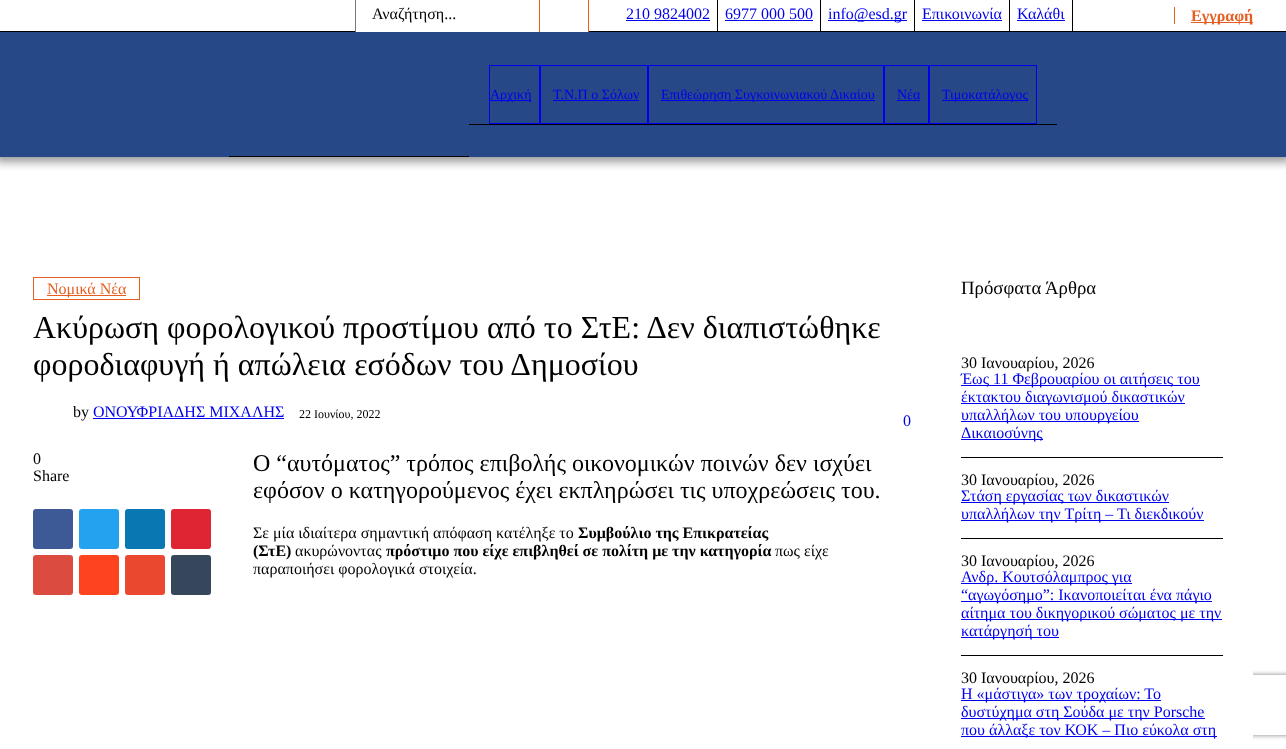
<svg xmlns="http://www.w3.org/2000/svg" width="1286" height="749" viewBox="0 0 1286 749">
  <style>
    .t1 { font: 16px Liberation Serif; fill: #000; }
    .t2 { font: 16px Liberation Serif; fill: #00e; }
    .t3 { font: bold 16px Liberation Serif; fill: #e65e20; }
    .t4 { font: 14px Liberation Serif; fill: #00e; }
    .t5 { font: 16px Liberation Serif; fill: #e65e20; }
    .t6 { font: 32px Liberation Serif; fill: #000; }
    .t7 { font: 12px Liberation Serif; fill: #000; }
    .t8 { font: 24px Liberation Serif; fill: #000; }
    .t9 { font: bold 16px Liberation Serif; fill: #000; }
    .t10 { font: 18.75px Liberation Serif; fill: #000; }
  </style>
  <defs>
    <clipPath id="clip1"><rect x="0" y="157" width="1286" height="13"/></clipPath>
    <clipPath id="clip2"><path d="M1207 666H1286V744H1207ZM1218 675H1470C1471 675 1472 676 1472 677V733C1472 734 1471 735 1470 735H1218C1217 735 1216 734 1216 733V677C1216 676 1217 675 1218 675Z" clip-rule="evenodd"/></clipPath>
  </defs>
  <rect width="100%" height="100%" fill="#fff"/>
  <g clip-path="url(#clip1)">
    <rect x="-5" y="-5" width="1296" height="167" fill="#00000066" filter="blur(5px)"/>
  </g>
  <rect x="0" y="31" width="1286" height="1" fill="#000"/>
  <rect x="356" y="31" width="183" height="1" fill="#fff"/>
  <rect x="355.5" y="-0.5" width="233" height="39" fill="none" stroke="#767676"/>
  <text x="372" y="19" class="t1">Αναζήτηση...</text>
  <rect x="540" y="31" width="48" height="1" fill="#fff"/>
  <rect x="539.5" y="-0.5" width="49" height="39" fill="none" stroke="#e65e20"/>
  <rect x="717" y="0" width="1" height="31" fill="#000"/>
  <text x="626" y="19" class="t2">210 9824002</text>
  <rect x="626" y="20" width="84" height="1" fill="#00e"/>
  <rect x="820" y="0" width="1" height="31" fill="#000"/>
  <text x="725" y="19" class="t2">6977 000 500</text>
  <rect x="725" y="20" width="88" height="1" fill="#00e"/>
  <rect x="914" y="0" width="1" height="31" fill="#000"/>
  <rect x="828" y="20" width="79" height="1" fill="#00e"/>
  <text x="828" y="19" class="t2">info@esd.gr</text>
  <rect x="1009" y="0" width="1" height="31" fill="#000"/>
  <text x="922" y="19" class="t2">Επικοινωνία</text>
  <rect x="922" y="20" width="80" height="1" fill="#00e"/>
  <rect x="1072" y="0" width="1" height="31" fill="#000"/>
  <text x="1017" y="19" class="t2">Καλάθι</text>
  <rect x="1017" y="20" width="48" height="1" fill="#00e"/>
  <rect x="1191" y="22" width="62" height="1" fill="#e65e20"/>
  <text x="1191" y="21" class="t3">Εγγραφή</text>
  <rect x="1174" y="7" width="1" height="17" fill="#e65e20"/>
  <rect x="0" y="32" width="1286" height="125" fill="#264887"/>
  <rect x="469" y="124" width="588" height="1" fill="#000"/>
  <rect x="489.5" y="65.5" width="50" height="58" fill="none" stroke="#00e"/>
  <rect x="490" y="100" width="41" height="1" fill="#00e"/>
  <text x="490" y="99" class="t4">Αρχική</text>
  <rect x="540.5" y="65.5" width="107" height="58" fill="none" stroke="#00e"/>
  <text x="553" y="99" class="t4">Τ.Ν.Π o Σόλων</text>
  <rect x="553" y="100" width="86" height="1" fill="#00e"/>
  <rect x="648.5" y="65.5" width="235" height="58" fill="none" stroke="#00e"/>
  <rect x="661" y="100" width="214" height="1" fill="#00e"/>
  <text x="661" y="99" class="t4">Επιθεώρηση Συγκοινωνιακού Δικαίου</text>
  <rect x="884.5" y="65.5" width="44" height="58" fill="none" stroke="#00e"/>
  <text x="897" y="99" class="t4">Νέα</text>
  <rect x="897" y="100" width="23" height="1" fill="#00e"/>
  <rect x="929.5" y="65.5" width="107" height="58" fill="none" stroke="#00e"/>
  <rect x="942" y="100" width="86" height="1" fill="#00e"/>
  <text x="942" y="99" class="t4">Τιμοκατάλογος</text>
  <rect x="229" y="156" width="240" height="1" fill="#000"/>
  <rect x="33.5" y="277.5" width="106" height="22" fill="none" stroke="#e65e20"/>
  <rect x="47" y="295" width="79" height="1" fill="#e65e20"/>
  <text x="47" y="294" class="t5">Νομικά Νέα</text>
  <text x="33" y="338" class="t6">Ακύρωση φορολογικού προστίμου από το ΣτΕ: Δεν διαπιστώθηκε</text>
  <text x="33" y="375" class="t6">φοροδιαφυγή ή απώλεια εσόδων του Δημοσίου</text>
  <text x="73" y="417" class="t1">by</text>
  <text x="93" y="417" class="t2">ΟΝΟΥΦΡΙΑΔΗΣ ΜΙΧΑΛΗΣ</text>
  <rect x="93" y="418" width="191" height="1" fill="#00e"/>
  <text x="299" y="418" class="t7">22 Ιουνίου, 2022</text>
  <text x="903" y="426" class="t2">0</text>
  <text x="33" y="464" class="t1">0</text>
  <text x="33" y="481" class="t1">Share</text>
  <rect x="33" y="509" width="40" height="40" rx="3" fill="#3d5996"/>
  <rect x="79" y="509" width="40" height="40" rx="3" fill="#24a1ef"/>
  <rect x="125" y="509" width="40" height="40" rx="3" fill="#0977b2"/>
  <rect x="171" y="509" width="40" height="40" rx="3" fill="#df2433"/>
  <rect x="33" y="555" width="40" height="40" rx="3" fill="#dc4b3f"/>
  <rect x="79" y="555" width="40" height="40" rx="3" fill="#fe441e"/>
  <rect x="125" y="555" width="40" height="40" rx="3" fill="#ea492f"/>
  <rect x="171" y="555" width="40" height="40" rx="3" fill="#36465b"/>
  <text x="253" y="471" class="t8">Ο “αυτόματος” τρόπος επιβολής οικονομικών ποινών δεν ισχύει</text>
  <text x="253" y="498" class="t8">εφόσον ο κατηγορούμενος έχει εκπληρώσει τις υποχρεώσεις του.</text>
  <text x="253" y="538" class="t1">Σε μία ιδιαίτερα σημαντική απόφαση κατέληξε το</text>
  <text x="578" y="538" class="t9">Συμβούλιο της Επικρατείας</text>
  <text x="253" y="556" class="t9">(ΣτΕ)</text>
  <text x="295" y="556" class="t1">ακυρώνοντας</text>
  <text x="386" y="556" class="t9">πρόστιμο που είχε επιβληθεί σε πολίτη με την κατηγορία</text>
  <text x="775" y="556" class="t1">πως είχε</text>
  <text x="253" y="574" class="t1">παραποιήσει φορολογικά στοιχεία.</text>
  <text x="961" y="294" class="t10">Πρόσφατα Άρθρα</text>
  <g clip-path="url(#clip2)">
    <rect x="1216" y="675" width="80" height="60" rx="2" fill="#808080" filter="blur(2.5px)"/>
  </g>
  <rect x="961" y="331" width="292" height="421" rx="3" fill="#fff"/>
  <rect x="961" y="457" width="262" height="1" fill="#000"/>
  <text x="961" y="368" class="t1">30 Ιανουαρίου, 2026</text>
  <rect x="961" y="385" width="239" height="1" fill="#00e"/>
  <text x="961" y="384" class="t2">Έως 11 Φεβρουαρίου οι αιτήσεις του</text>
  <rect x="961" y="403" width="224" height="1" fill="#00e"/>
  <text x="961" y="402" class="t2">έκτακτου διαγωνισμού δικαστικών</text>
  <rect x="961" y="421" width="178" height="1" fill="#00e"/>
  <text x="961" y="420" class="t2">υπαλλήλων του υπουργείου</text>
  <rect x="961" y="439" width="82" height="1" fill="#00e"/>
  <text x="961" y="438" class="t2">Δικαιοσύνης</text>
  <rect x="961" y="538" width="262" height="1" fill="#000"/>
  <text x="961" y="485" class="t1">30 Ιανουαρίου, 2026</text>
  <rect x="961" y="502" width="208" height="1" fill="#00e"/>
  <text x="961" y="501" class="t2">Στάση εργασίας των δικαστικών</text>
  <rect x="961" y="520" width="243" height="1" fill="#00e"/>
  <text x="961" y="519" class="t2">υπαλλήλων την Τρίτη – Τι διεκδικούν</text>
  <rect x="961" y="655" width="262" height="1" fill="#000"/>
  <text x="961" y="566" class="t1">30 Ιανουαρίου, 2026</text>
  <rect x="961" y="583" width="171" height="1" fill="#00e"/>
  <text x="961" y="582" class="t2">Ανδρ. Κουτσόλαμπρος για</text>
  <rect x="961" y="601" width="251" height="1" fill="#00e"/>
  <text x="961" y="600" class="t2">“αγωγόσημο”: Ικανοποιείται ένα πάγιο</text>
  <rect x="961" y="619" width="261" height="1" fill="#00e"/>
  <text x="961" y="618" class="t2">αίτημα του δικηγορικού σώματος με την</text>
  <rect x="961" y="637" width="98" height="1" fill="#00e"/>
  <text x="961" y="636" class="t2">κατάργησή του</text>
  <text x="961" y="683" class="t1">30 Ιανουαρίου, 2026</text>
  <rect x="961" y="700" width="200" height="1" fill="#00e"/>
  <text x="961" y="699" class="t2">Η «μάστιγα» των τροχαίων: Το</text>
  <rect x="961" y="718" width="244" height="1" fill="#00e"/>
  <text x="961" y="717" class="t2">δυστύχημα στη Σούδα με την Porsche</text>
  <rect x="961" y="736" width="256" height="1" fill="#00e"/>
  <text x="961" y="735" class="t2">που άλλαξε τον ΚΟΚ – Πιο εύκολα στη</text>
</svg>
